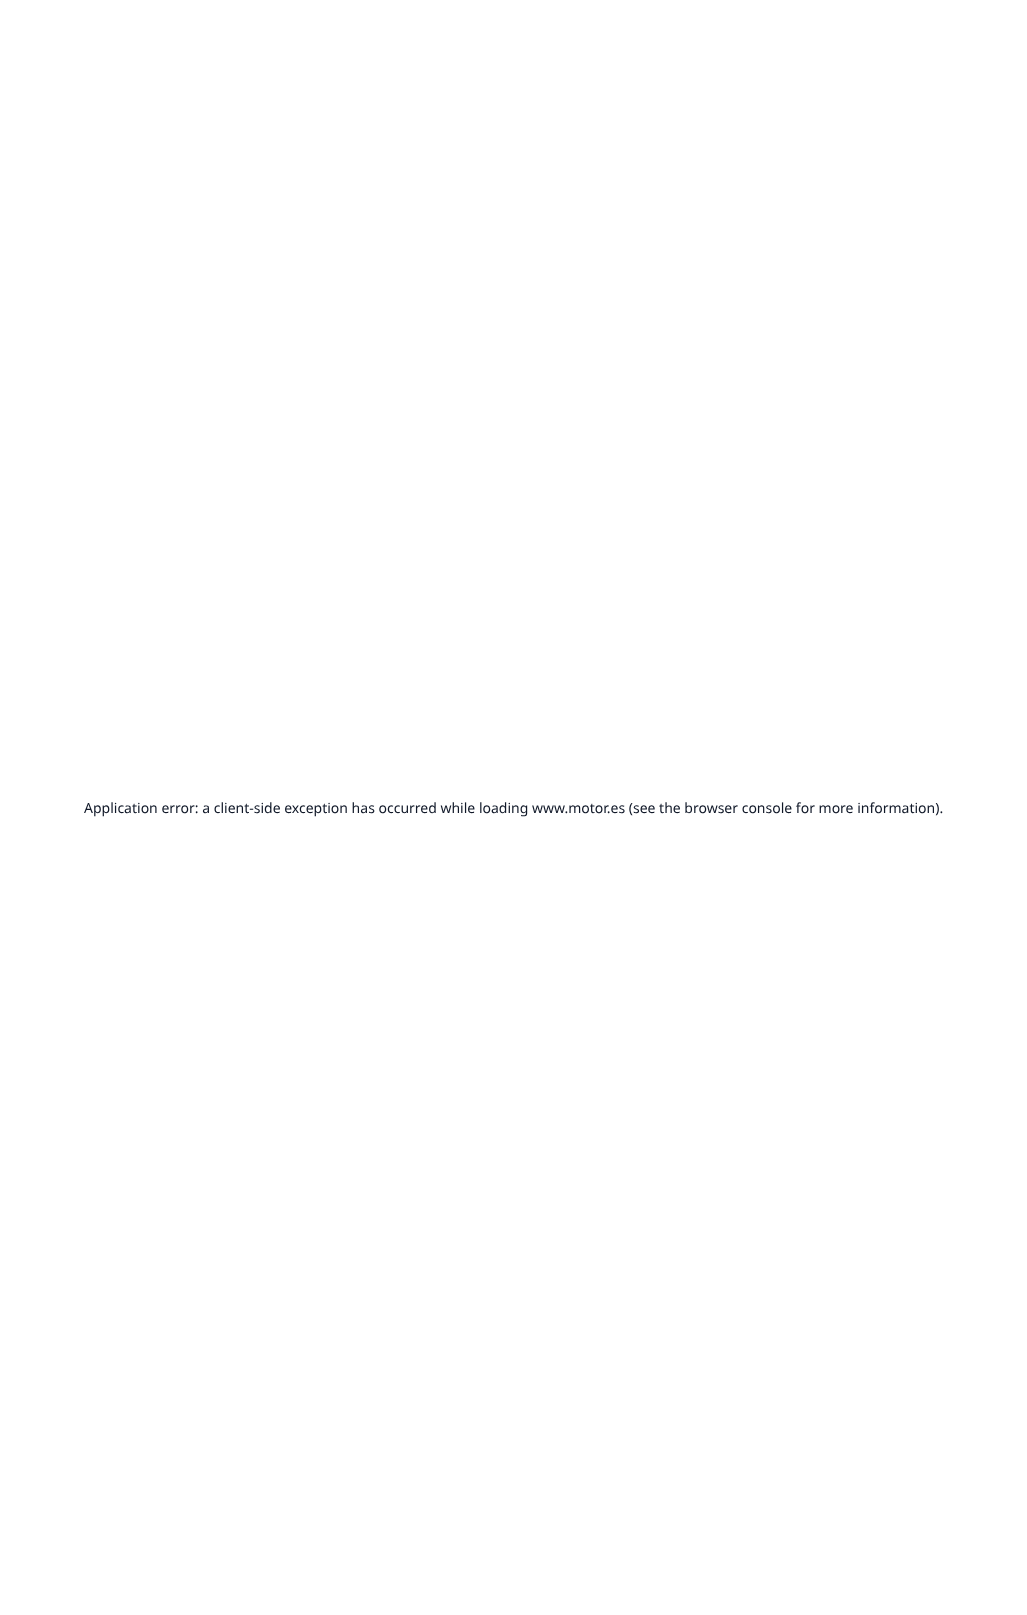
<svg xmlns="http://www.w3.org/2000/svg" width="1027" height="1615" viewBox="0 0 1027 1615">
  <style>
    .t1 { font: 14px Noto Sans; fill: #101828; }
  </style>
  <rect width="100%" height="100%" fill="#fff"/>
  <text x="84" y="813" class="t1">Application error: a client-side exception has occurred while loading www.motor.es (see the browser console for more information).</text>
</svg>
